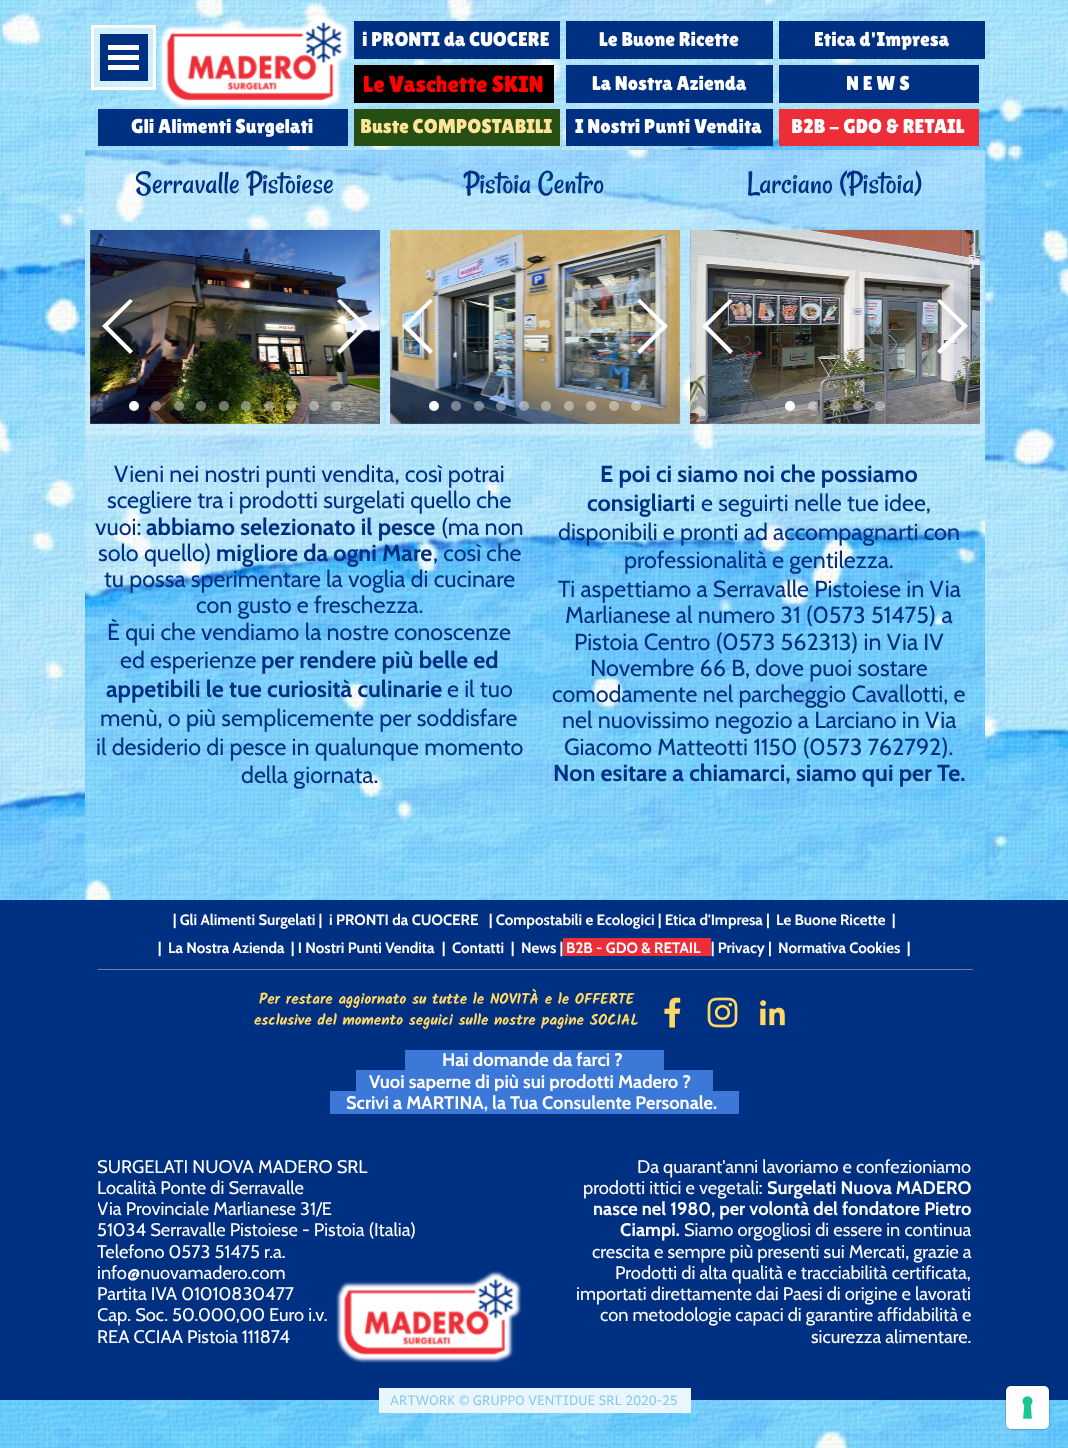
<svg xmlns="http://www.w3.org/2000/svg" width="1068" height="1448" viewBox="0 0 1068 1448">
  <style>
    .t1 { font: 20px Lilita One; fill: #fff; }
    .t2 { font: 23.3px Lilita One; fill: #f00; }
    .t3 { font: 20px Lilita One; fill: #ffe599; }
    .t4 { font: 33.25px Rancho; fill: #003082; }
    .t5 { font: 23.3px Cabin; fill: #003082; }
    .t6 { font: bold 23.3px Cabin; fill: #003082; }
    .t7 { font: bold 15px Cabin; fill: #fff; }
    .t8 { font: bold 15px Kalam; fill: #ffd966; }
    .t9 { font: bold 18.3px Cabin; fill: #fff; }
    .t10 { font: 18.3px Cabin; fill: #fff; }
    .t11 { font: 13.3px Andika; fill: #87c9ee; }
  </style>
  <defs>
    <clipPath id="clip1"><rect x="98" y="1156" width="337" height="220"/></clipPath>
  </defs>
  <rect width="100%" height="100%" fill="#fff"/>
  <image x="0" y="0" width="1068" height="1448" href="images/1.png"/>
  <rect x="92.5" y="26.5" width="62" height="62" fill="#ffffff80" stroke="#fff" stroke-width="3"/>
  <rect x="100" y="34" width="48" height="47" fill="#003082"/>
  <rect x="108" y="45" width="31" height="5" fill="#fff"/>
  <rect x="108" y="55" width="31" height="5" fill="#fff"/>
  <rect x="108" y="65" width="31" height="5" fill="#fff"/>
  <image x="158" y="14" width="192" height="95" href="images/2.png"/>
  <rect x="354" y="21" width="206" height="38" fill="#003082"/>
  <text x="362" y="46" class="t1">i PRONTI da CUOCERE</text>
  <rect x="566" y="21" width="207" height="38" fill="#003082"/>
  <text x="599" y="46" class="t1">Le Buone Ricette</text>
  <rect x="779" y="21" width="206" height="38" fill="#003082"/>
  <text x="814" y="46" class="t1">Etica d'Impresa</text>
  <rect x="354" y="65" width="200" height="38" fill="#000"/>
  <text x="363" y="92" class="t2">Le Vaschette SKIN</text>
  <rect x="566" y="65" width="207" height="38" fill="#003082"/>
  <text x="592" y="90" class="t1">La Nostra Azienda</text>
  <rect x="779" y="65" width="200" height="38" fill="#003082"/>
  <text x="846" y="90" class="t1">N E W S</text>
  <rect x="98" y="109" width="250" height="37" fill="#003082"/>
  <text x="131" y="133" class="t1">Gli Alimenti Surgelati</text>
  <rect x="354" y="109" width="206" height="37" fill="#274e13"/>
  <text x="360" y="133" class="t3">Buste COMPOSTABILI</text>
  <rect x="566" y="109" width="207" height="37" fill="#003082"/>
  <text x="575" y="133" class="t1">I Nostri Punti Vendita</text>
  <rect x="779" y="109" width="200" height="37" fill="#ed2e38"/>
  <text x="791" y="133" class="t1">B2B - GDO &amp; RETAIL</text>
  <image x="85" y="150" width="900" height="750" href="images/3.png"/>
  <rect x="85" y="150" width="900" height="286" fill="#ffffff40"/>
  <text x="135" y="193" class="t4">Serravalle Pistoiese</text>
  <image x="90" y="230" width="290" height="194" href="images/4.png"/>
  <image x="90" y="230" width="290" height="194" href="images/5.png"/>
  <path d="M102 326L130 299L133 301L108 326L133 351L130 354Z" fill="#fff"/>
  <path d="M368 326L340 354L337 351L362 326L337 301L340 299Z" fill="#fff"/>
  <circle cx="134" cy="406" r="5" fill="#fff"/>
  <circle cx="156" cy="406" r="5" fill="#ffffff66"/>
  <circle cx="179" cy="406" r="5" fill="#ffffff66"/>
  <circle cx="201" cy="406" r="5" fill="#ffffff66"/>
  <circle cx="224" cy="406" r="5" fill="#ffffff66"/>
  <circle cx="246" cy="406" r="5" fill="#ffffff66"/>
  <circle cx="269" cy="406" r="5" fill="#ffffff66"/>
  <circle cx="291" cy="406" r="5" fill="#ffffff66"/>
  <circle cx="314" cy="406" r="5" fill="#ffffff66"/>
  <circle cx="336" cy="406" r="5" fill="#ffffff66"/>
  <text x="464" y="193" class="t4">Pistoia Centro</text>
  <image x="390" y="230" width="290" height="194" href="images/6.png"/>
  <image x="390" y="230" width="290" height="194" href="images/7.png"/>
  <path d="M402 326L430 299L433 301L408 326L433 351L430 354Z" fill="#fff"/>
  <path d="M668 326L640 354L637 351L662 326L637 301L640 299Z" fill="#fff"/>
  <circle cx="434" cy="406" r="5" fill="#fff"/>
  <circle cx="456" cy="406" r="5" fill="#ffffff66"/>
  <circle cx="479" cy="406" r="5" fill="#ffffff66"/>
  <circle cx="501" cy="406" r="5" fill="#ffffff66"/>
  <circle cx="524" cy="406" r="5" fill="#ffffff66"/>
  <circle cx="546" cy="406" r="5" fill="#ffffff66"/>
  <circle cx="569" cy="406" r="5" fill="#ffffff66"/>
  <circle cx="591" cy="406" r="5" fill="#ffffff66"/>
  <circle cx="614" cy="406" r="5" fill="#ffffff66"/>
  <circle cx="636" cy="406" r="5" fill="#ffffff66"/>
  <text x="747" y="193" class="t4">Larciano (Pistoia)</text>
  <image x="690" y="230" width="290" height="194" href="images/8.png"/>
  <image x="690" y="230" width="290" height="194" href="images/9.png"/>
  <path d="M702 326L730 299L733 301L708 326L733 351L730 354Z" fill="#fff"/>
  <path d="M968 326L940 354L937 351L962 326L937 301L940 299Z" fill="#fff"/>
  <circle cx="790" cy="406" r="5" fill="#fff"/>
  <circle cx="813" cy="406" r="5" fill="#ffffff66"/>
  <circle cx="835" cy="406" r="5" fill="#ffffff66"/>
  <circle cx="858" cy="406" r="5" fill="#ffffff66"/>
  <circle cx="880" cy="406" r="5" fill="#ffffff66"/>
  <text x="114" y="482" class="t5">Vieni nei nostri punti vendita, così potrai</text>
  <text x="107" y="508" class="t5">scegliere tra i prodotti surgelati quello che</text>
  <text x="95" y="535" class="t5">vuoi:</text>
  <text x="146" y="535" class="t6">abbiamo selezionato il pesce</text>
  <text x="441" y="535" class="t5">(ma non</text>
  <text x="98" y="561" class="t5">solo quello)</text>
  <text x="216" y="561" class="t6">migliore da ogni Mare</text>
  <text x="433" y="561" class="t5">, così che</text>
  <text x="104" y="587" class="t5">tu possa sperimentare la voglia di cucinare</text>
  <text x="196" y="613" class="t5">con gusto e freschezza.</text>
  <text x="107" y="640" class="t5">È qui che vendiamo la nostre conoscenze</text>
  <text x="120" y="668" class="t5">ed esperienze</text>
  <text x="261" y="668" class="t6">per rendere più belle ed</text>
  <text x="106" y="697" class="t6">appetibili le tue curiosità culinarie</text>
  <text x="447" y="697" class="t5">e il tuo</text>
  <text x="100" y="726" class="t5">menù, o più semplicemente per soddisfare</text>
  <text x="96" y="755" class="t5">il desiderio di pesce in qualunque momento</text>
  <text x="241" y="783" class="t5">della giornata.</text>
  <text x="600" y="482" class="t6">E poi ci siamo noi che possiamo</text>
  <text x="587" y="511" class="t6">consigliarti</text>
  <text x="701" y="511" class="t5">e seguirti nelle tue idee,</text>
  <text x="558" y="540" class="t5">disponibili e pronti ad accompagnarti con</text>
  <text x="624" y="568" class="t5">professionalità e gentilezza.</text>
  <text x="558" y="597" class="t5">Ti aspettiamo a Serravalle Pistoiese in Via</text>
  <text x="565" y="623" class="t5">Marlianese al numero 31 (0573 51475) a</text>
  <text x="574" y="650" class="t5">Pistoia Centro (0573 562313) in Via IV</text>
  <text x="590" y="676" class="t5">Novembre 66 B, dove puoi sostare</text>
  <text x="552" y="702" class="t5">comodamente nel parcheggio Cavallotti, e</text>
  <text x="562" y="728" class="t5">nel nuovissimo negozio a Larciano in Via</text>
  <text x="564" y="755" class="t5">Giacomo Matteotti 1150 (0573 762792).</text>
  <text x="553" y="781" class="t6">Non esitare a chiamarci, siamo qui per Te.</text>
  <rect x="0" y="900" width="1068" height="500" fill="#003082"/>
  <text x="173" y="925" class="t7">| Gli Alimenti Surgelati |</text>
  <text x="329" y="925" class="t7">i PRONTI da CUOCERE</text>
  <text x="489" y="925" class="t7">| Compostabili e Ecologici | Etica d'Impresa |</text>
  <text x="776" y="925" class="t7">Le Buone Ricette</text>
  <text x="892" y="925" class="t7">|</text>
  <text x="158" y="953" class="t7">|</text>
  <text x="168" y="953" class="t7">La Nostra Azienda</text>
  <text x="291" y="953" class="t7">| I Nostri Punti Vendita</text>
  <text x="442" y="953" class="t7">|</text>
  <text x="452" y="953" class="t7">Contatti</text>
  <text x="511" y="953" class="t7" xml:space="preserve">|  News |</text>
  <rect x="563" y="938" width="148" height="18" fill="#ed2e38"/>
  <text x="566" y="953" class="t7">B2B - GDO &amp; RETAIL</text>
  <text x="711" y="953" class="t7">| Privacy |</text>
  <text x="778" y="953" class="t7" xml:space="preserve">Normativa Cookies  |</text>
  <rect x="98" y="969" width="875" height="1" fill="#808080"/>
  <text x="259" y="1004" class="t8">Per restare aggiornato su tutte le NOVITÀ e le OFFERTE</text>
  <text x="254" y="1025" class="t8">esclusive del momento seguici sulle nostre pagine SOCIAL</text>
  <image x="664" y="997" width="17" height="31" href="images/10.png"/>
  <image x="707" y="997" width="31" height="31" href="images/11.png"/>
  <image x="760" y="1000" width="25" height="26" href="images/12.png"/>
  <rect x="405" y="1050" width="259" height="20" fill="#3c78d8"/>
  <text x="442" y="1066" class="t9">Hai domande da farci ?</text>
  <rect x="356" y="1070" width="357" height="21" fill="#3c78d8"/>
  <text x="369" y="1088" class="t9">Vuoi saperne di più sui prodotti Madero ?</text>
  <rect x="330" y="1091" width="409" height="23" fill="#3c78d8"/>
  <text x="346" y="1109" class="t9">Scrivi a MARTINA, la Tua Consulente Personale.</text>
  <g clip-path="url(#clip1)">
    <text x="97" y="1173" class="t10">SURGELATI NUOVA MADERO SRL</text>
  </g>
  <text x="97" y="1194" class="t10">Località Ponte di Serravalle</text>
  <g clip-path="url(#clip1)">
    <text x="97" y="1215" class="t10">Via Provinciale Marlianese 31/E</text>
  </g>
  <text x="97" y="1236" class="t10">51034 Serravalle Pistoiese - Pistoia (Italia)</text>
  <text x="97" y="1258" class="t10">Telefono 0573 51475 r.a.</text>
  <text x="97" y="1279" class="t10">info@nuovamadero.com</text>
  <text x="97" y="1300" class="t10">Partita IVA 01010830477</text>
  <g clip-path="url(#clip1)">
    <text x="97" y="1321" class="t10">Cap. Soc. 50.000,00 Euro i.v.</text>
  </g>
  <text x="97" y="1343" class="t10">REA CCIAA Pistoia 111874</text>
  <image x="335" y="1271" width="187" height="92" href="images/13.png"/>
  <text x="637" y="1173" class="t10">Da quarant'anni lavoriamo e confezioniamo</text>
  <text x="583" y="1194" class="t10">prodotti ittici e vegetali:</text>
  <text x="767" y="1194" class="t9">Surgelati Nuova MADERO</text>
  <text x="593" y="1215" class="t9">nasce nel 1980, per volontà del fondatore Pietro</text>
  <text x="620" y="1236" class="t9">Ciampi.</text>
  <text x="684" y="1236" class="t10">Siamo orgogliosi di essere in continua</text>
  <text x="592" y="1258" class="t10">crescita e sempre più presenti sui Mercati, grazie a</text>
  <text x="615" y="1279" class="t10">Prodotti di alta qualità e tracciabilità certificata,</text>
  <text x="576" y="1300" class="t10">importati direttamente dai Paesi di origine e lavorati</text>
  <text x="600" y="1321" class="t10">con metodologie capaci di garantire affidabilità e</text>
  <text x="811" y="1343" class="t10">sicurezza alimentare.</text>
  <rect x="379" y="1388" width="312" height="25" fill="#e9f6fd"/>
  <text x="390" y="1405" class="t11">ARTWORK © GRUPPO VENTIDUE SRL 2020-25</text>
  <rect x="1005.5" y="1385.5" width="44" height="44" rx="5.5" fill="none" stroke="#00000026"/>
  <rect x="1006" y="1386" width="43" height="43" rx="5" fill="#fff"/>
  <image x="1022" y="1396" width="11" height="23" href="images/14.png"/>
</svg>
